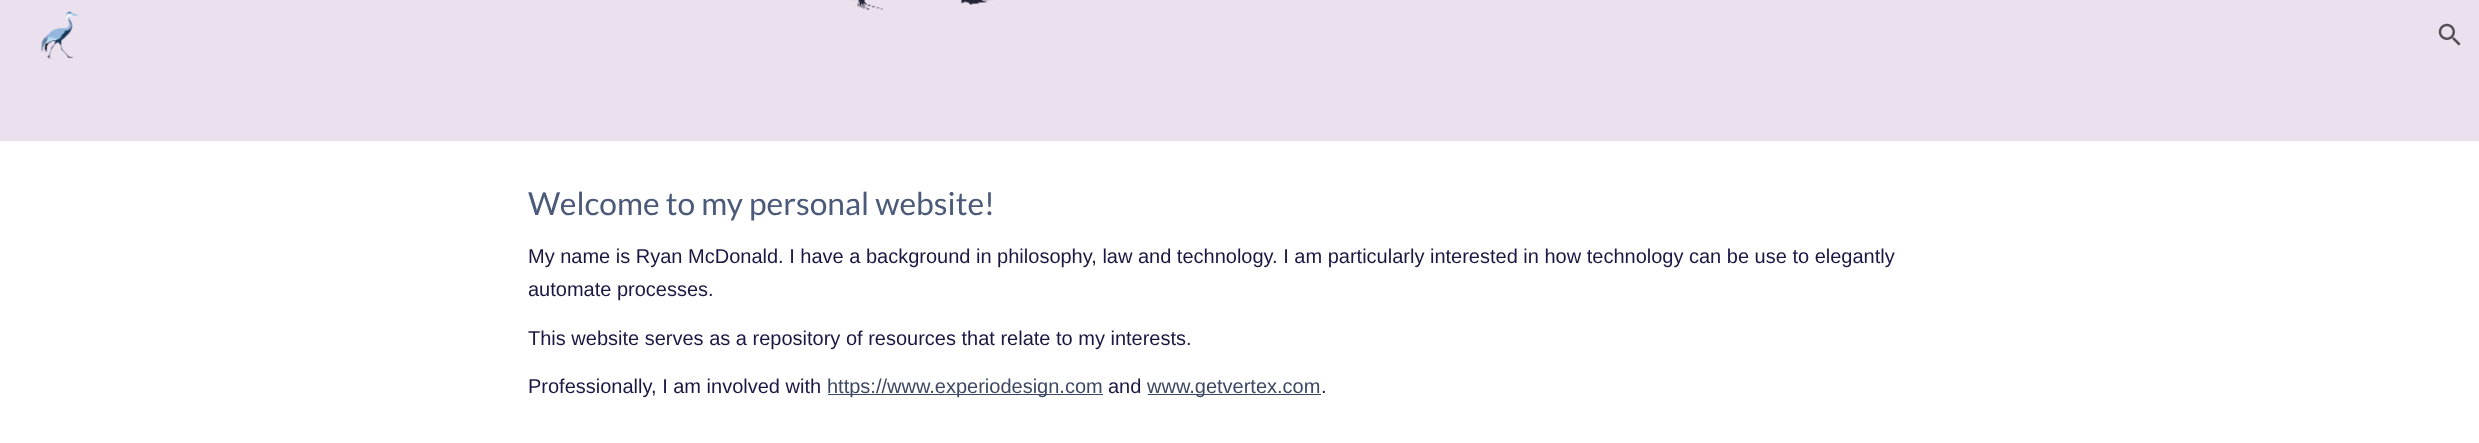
<svg xmlns="http://www.w3.org/2000/svg" width="2479" height="443" viewBox="0 0 2479 443">
  <style>
    .t1 { font: 31.7px Lato; fill: #4c5a79; }
    .t2 { font: 20px Liberation Sans; fill: #1b1642; }
    .t3 { font: 20px Liberation Sans; fill: #3d4861; }
  </style>
  <rect width="100%" height="100%" fill="#fff"/>
  <image x="0" y="0" width="2479" height="141" href="images/3.png"/>
  <image x="40" y="11" width="39" height="48" href="images/1.png"/>
  <image x="2438" y="23" width="23" height="23" href="images/2.png"/>
  <text x="528" y="215" class="t1">Welcome to my personal website!</text>
  <text x="528" y="263" class="t2">My name is Ryan McDonald. I have a background in philosophy, law and technology. I am particularly interested in how technology can be use to elegantly</text>
  <text x="528" y="296" class="t2">automate processes.</text>
  <text x="528" y="345" class="t2">This website serves as a repository of resources that relate to my interests.</text>
  <text x="528" y="393" class="t2">Professionally, I am involved with</text>
  <rect x="828" y="394" width="275" height="1" fill="#3d4861"/>
  <text x="827" y="393" class="t3">https://www.experiodesign.com</text>
  <text x="1108" y="393" class="t2">and</text>
  <rect x="1148" y="394" width="173" height="1" fill="#3d4861"/>
  <text x="1147" y="393" class="t3">www.getvertex.com</text>
  <text x="1321" y="393" class="t2">.</text>
</svg>
